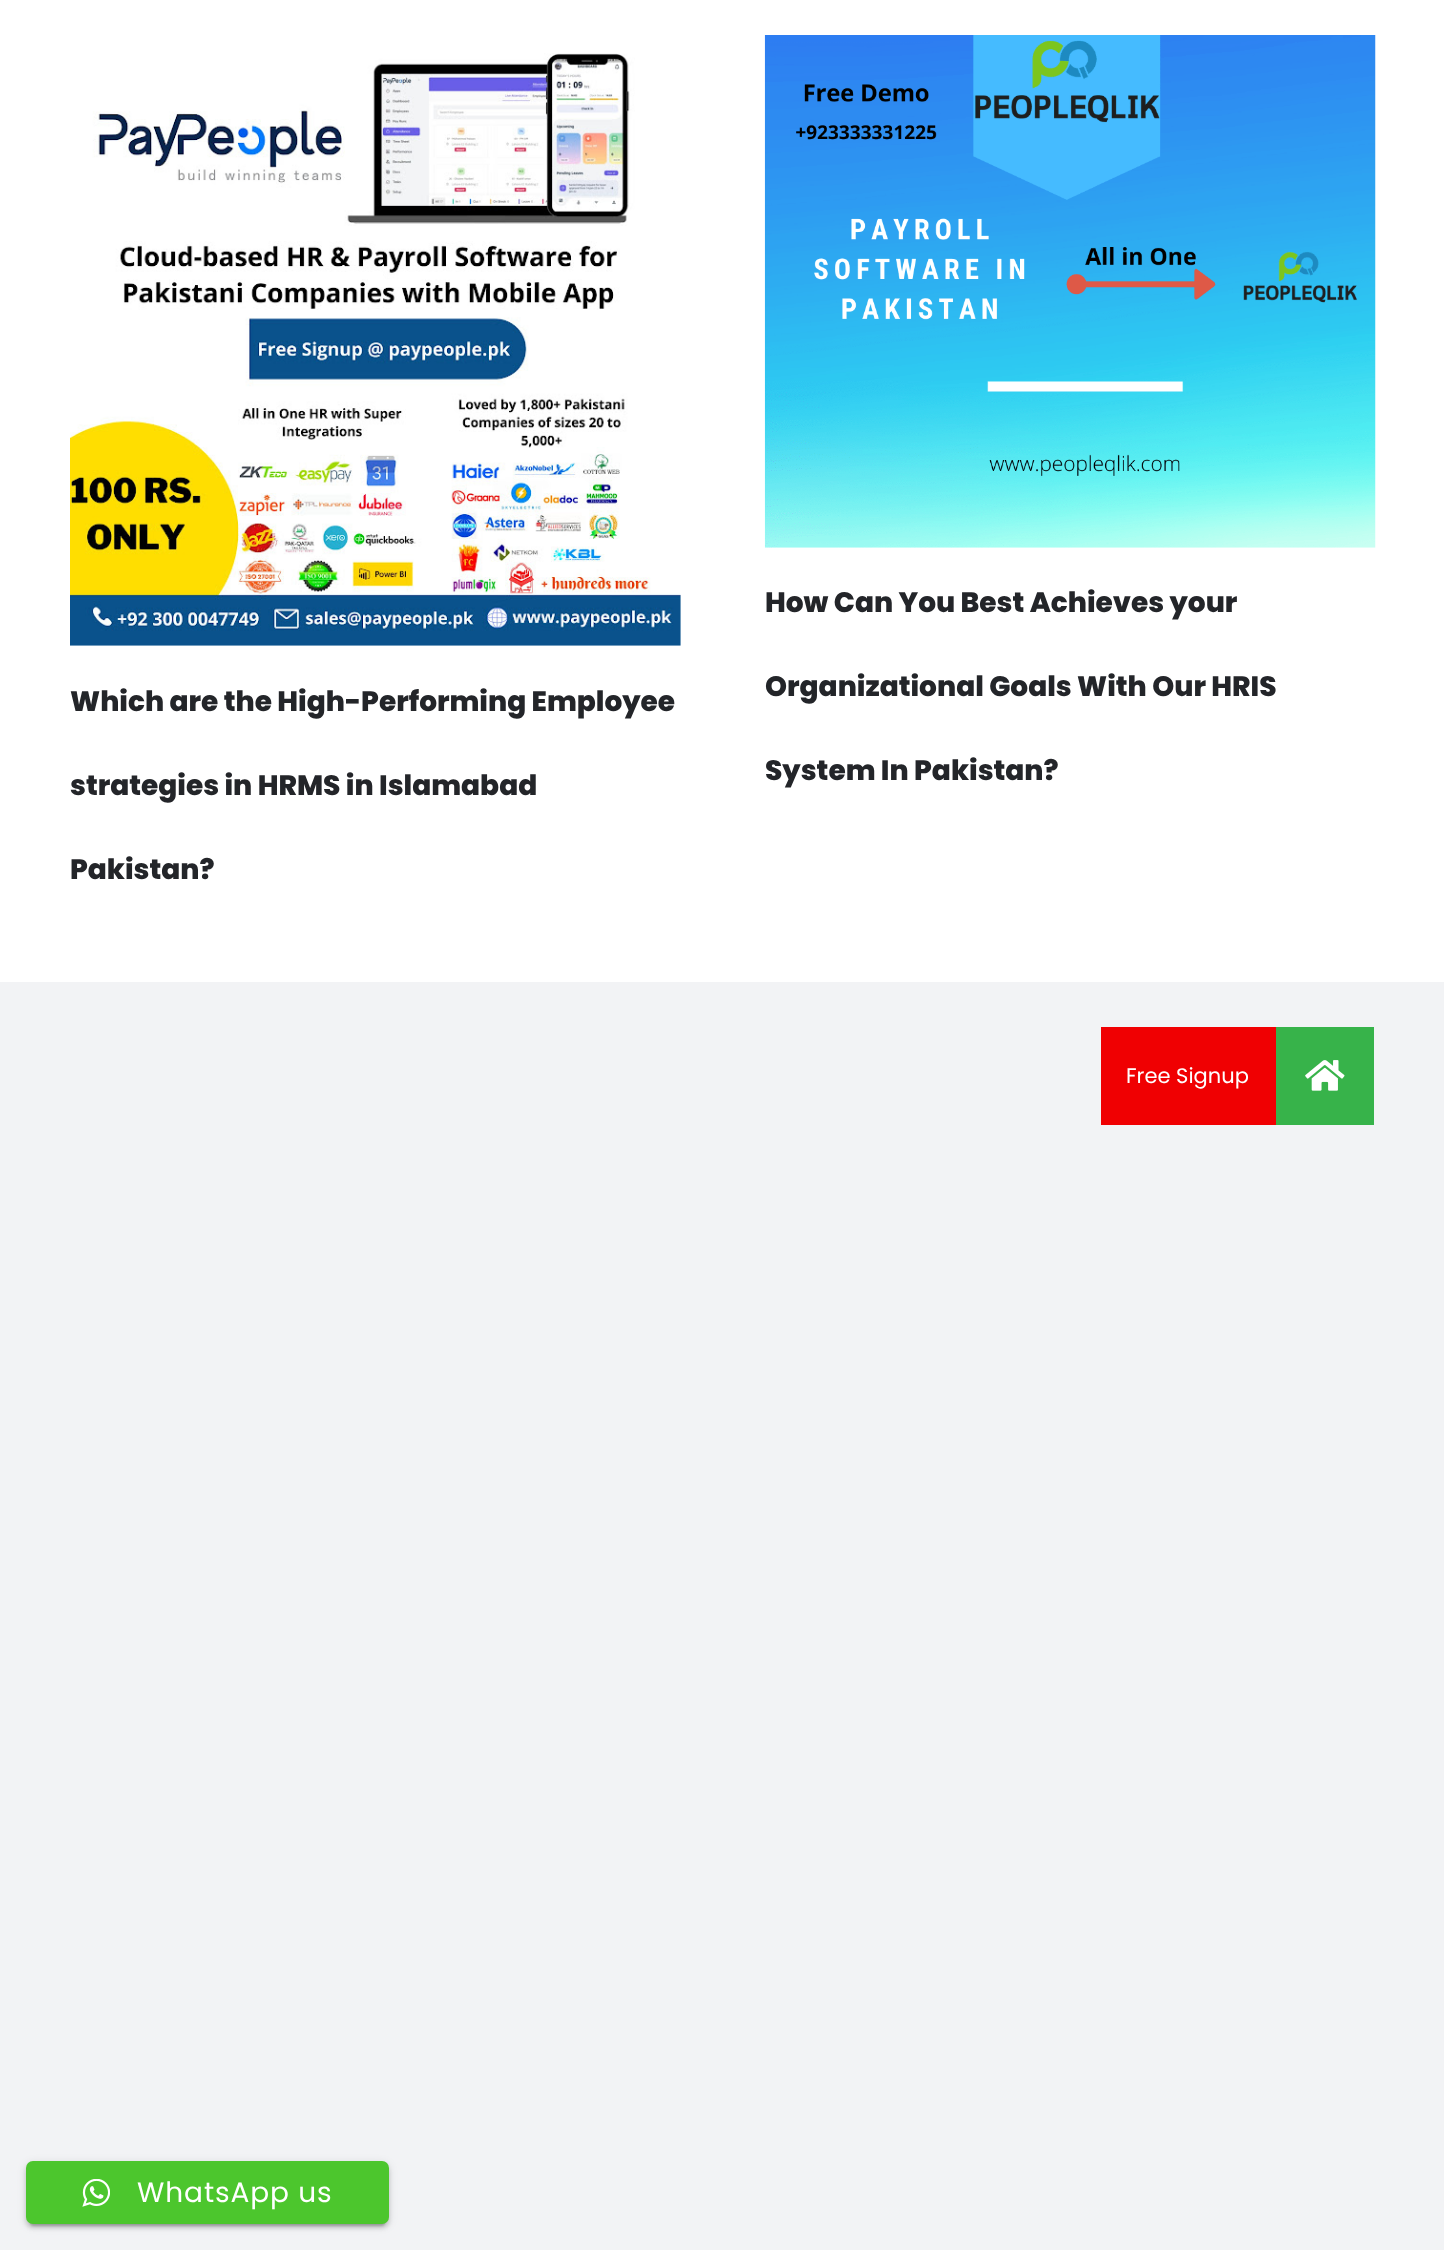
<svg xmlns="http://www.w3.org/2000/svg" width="1444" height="2250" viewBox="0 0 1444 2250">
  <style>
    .t1 { font: 800 28px Poppins; fill: #232529; }
    .t2 { font: 21px Poppins; fill: #fff; }
    .t3 { font: 28px Poppins; letter-spacing: 0.9px; fill: #fff; }
  </style>
  <rect width="100%" height="100%" fill="#f2f3f5"/>
  <rect x="0" y="0" width="1444" height="982" fill="#fff"/>
  <image x="70" y="53" width="611" height="593" href="images/1.png"/>
  <text x="70" y="711" class="t1">Which are the High-Performing Employee</text>
  <text x="70" y="795" class="t1">strategies in HRMS in Islamabad</text>
  <text x="70" y="879" class="t1">Pakistan?</text>
  <image x="764" y="35" width="612" height="513" href="images/2.png"/>
  <text x="765" y="612" class="t1">How Can You Best Achieves your</text>
  <text x="765" y="696" class="t1">Organizational Goals With Our HRIS</text>
  <text x="765" y="780" class="t1">System In Pakistan?</text>
  <rect x="1276" y="1027" width="98" height="98" fill="#37b34a"/>
  <rect x="1101" y="1027" width="175" height="98" fill="#f00002"/>
  <text x="1126" y="1083" class="t2">Free Signup</text>
  <image x="1305" y="1060" width="40" height="31" href="images/3.png"/>
  <rect x="30" y="2170" width="355" height="56" rx="4" fill="#00000033" filter="blur(1px)"/>
  <rect x="26" y="2163" width="363" height="63" rx="7" fill="#0000001f" filter="blur(4.5px)"/>
  <rect x="26" y="2165" width="363" height="63" rx="7" fill="#00000024" filter="blur(2px)"/>
  <rect x="26" y="2161" width="363" height="63" rx="7" fill="#4cc62d"/>
  <image x="82" y="2179" width="28" height="28" href="images/4.png"/>
  <text x="137" y="2202" class="t3">WhatsApp us</text>
</svg>
